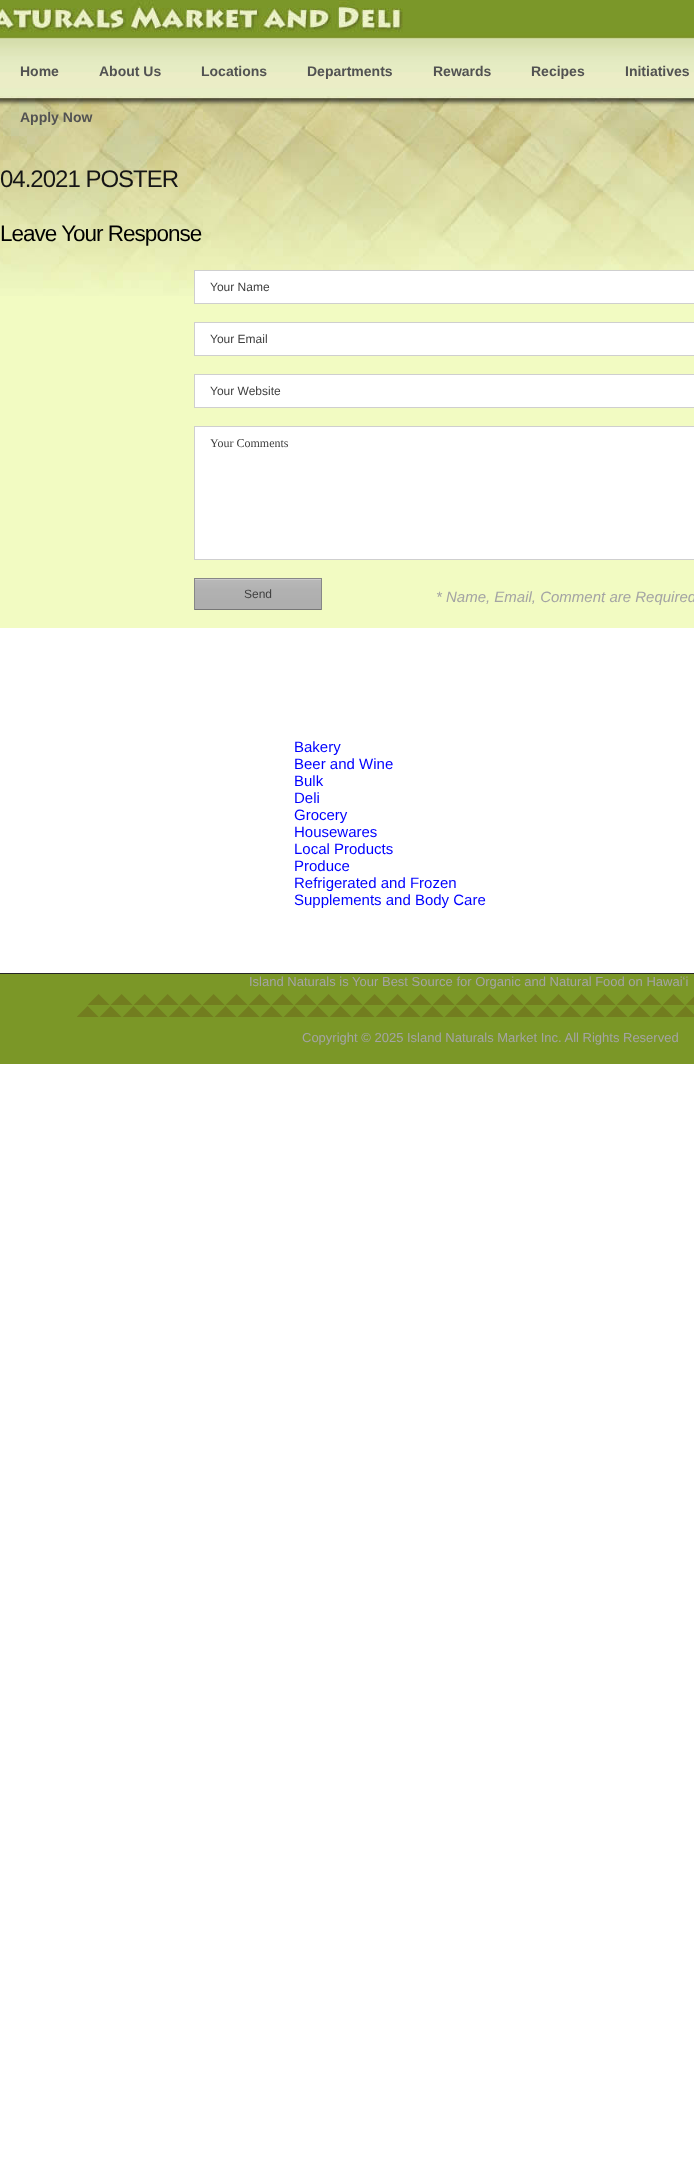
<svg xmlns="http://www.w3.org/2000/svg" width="694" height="2169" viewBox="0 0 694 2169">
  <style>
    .t1 { font: bold 14px Liberation Sans; fill: #525252; }
    .t2 { font: 24px Liberation Sans; letter-spacing: -1px; fill: #151515; }
    .t3 { font: 22.5px Liberation Sans; letter-spacing: -1px; fill: #000; }
    .t4 { font: 12px Liberation Sans; fill: #404040; }
    .t5 { font: 12px Liberation Serif; fill: #404040; }
    .t6 { font: italic 15px Liberation Sans; fill: #a4a4a4; }
    .t7 { font: 15px Liberation Sans; fill: #00f; }
    .t8 { font: 13px Liberation Sans; fill: #a4a4a4; }
  </style>
  <rect width="100%" height="100%" fill="#fff"/>
  <rect x="0" y="296" width="694" height="332" fill="#f2fbc2"/>
  <image x="0" y="0" width="694" height="296" href="images/1.png"/>
  <text x="20" y="76" class="t1">Home</text>
  <text x="99" y="76" class="t1">About Us</text>
  <text x="201" y="76" class="t1">Locations</text>
  <text x="307" y="76" class="t1">Departments</text>
  <text x="433" y="76" class="t1">Rewards</text>
  <text x="531" y="76" class="t1">Recipes</text>
  <text x="625" y="76" class="t1">Initiatives</text>
  <text x="20" y="122" class="t1">Apply Now</text>
  <text x="0" y="187" class="t2">04.2021 POSTER</text>
  <text x="0" y="241" class="t3">Leave Your Response</text>
  <rect x="194.5" y="270.5" width="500" height="33" fill="#fff" stroke="#cfcfcf"/>
  <text x="210" y="291" class="t4">Your Name</text>
  <rect x="194.5" y="322.5" width="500" height="33" fill="#fff" stroke="#cfcfcf"/>
  <text x="210" y="343" class="t4">Your Email</text>
  <rect x="194.5" y="374.5" width="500" height="33" fill="#fff" stroke="#cfcfcf"/>
  <text x="210" y="395" class="t4">Your Website</text>
  <rect x="194.5" y="426.5" width="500" height="133" fill="#fff" stroke="#cfcfcf"/>
  <text x="210" y="447" class="t5">Your Comments</text>
  <image x="194" y="578" width="128" height="32" href="images/2.png"/>
  <text x="244" y="598" class="t4">Send</text>
  <text x="436" y="602" class="t6">* Name, Email, Comment are Required</text>
  <text x="294" y="752" class="t7">Bakery</text>
  <text x="294" y="769" class="t7">Beer and Wine</text>
  <text x="294" y="786" class="t7">Bulk</text>
  <text x="294" y="803" class="t7">Deli</text>
  <text x="294" y="820" class="t7">Grocery</text>
  <text x="294" y="837" class="t7">Housewares</text>
  <text x="294" y="854" class="t7">Local Products</text>
  <text x="294" y="871" class="t7">Produce</text>
  <text x="294" y="888" class="t7">Refrigerated and Frozen</text>
  <text x="294" y="905" class="t7">Supplements and Body Care</text>
  <rect x="0" y="974" width="694" height="90" fill="#7b9727"/>
  <rect x="0" y="973" width="694" height="1" fill="#252525"/>
  <text x="249" y="986" class="t8">Island Naturals is Your Best Source for Organic and Natural Food on Hawaiʻi</text>
  <image x="77" y="994" width="617" height="23" href="images/3.png"/>
  <text x="302" y="1042" class="t8">Copyright © 2025 Island Naturals Market Inc. All Rights Reserved</text>
</svg>
